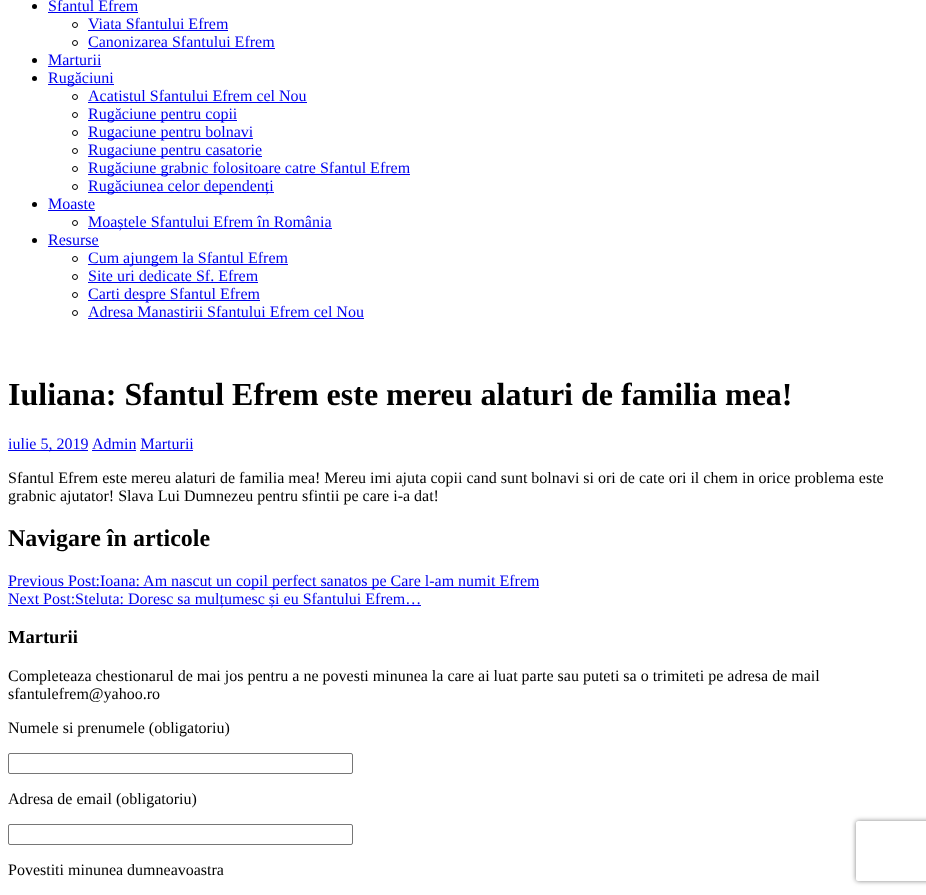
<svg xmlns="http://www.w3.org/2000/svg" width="926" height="895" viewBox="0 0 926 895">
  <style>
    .t1 { font: 16px Liberation Serif; fill: #00e; }
    .t2 { font: bold 32px Liberation Serif; fill: #000; }
    .t3 { font: 16px Liberation Serif; fill: #000; }
    .t4 { font: bold 24px Liberation Serif; fill: #000; }
    .t5 { font: bold 18.5px Liberation Serif; fill: #000; }
  </style>
  <defs>
    <clipPath id="clip1"><path d="M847 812H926V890H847ZM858 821H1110C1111 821 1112 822 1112 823V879C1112 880 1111 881 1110 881H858C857 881 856 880 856 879V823C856 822 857 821 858 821Z" clip-rule="evenodd"/></clipPath>
  </defs>
  <rect width="100%" height="100%" fill="#fff"/>
  <circle cx="34.5" cy="6.5" r="2.5" fill="#000"/>
  <text x="48" y="11" class="t1">Sfantul Efrem</text>
  <rect x="48" y="12" width="90" height="1" fill="#00e"/>
  <circle cx="75" cy="25" r="2.5" fill="none" stroke="#000"/>
  <text x="88" y="29" class="t1">Viata Sfantului Efrem</text>
  <rect x="88" y="30" width="140" height="1" fill="#00e"/>
  <circle cx="75" cy="43" r="2.5" fill="none" stroke="#000"/>
  <text x="88" y="47" class="t1">Canonizarea Sfantului Efrem</text>
  <rect x="88" y="48" width="187" height="1" fill="#00e"/>
  <circle cx="34.5" cy="60.5" r="2.5" fill="#000"/>
  <text x="48" y="65" class="t1">Marturii</text>
  <rect x="48" y="66" width="53" height="1" fill="#00e"/>
  <circle cx="34.5" cy="78.5" r="2.5" fill="#000"/>
  <rect x="48" y="84" width="66" height="1" fill="#00e"/>
  <text x="48" y="83" class="t1">Rugăciuni</text>
  <circle cx="75" cy="97" r="2.5" fill="none" stroke="#000"/>
  <text x="88" y="101" class="t1">Acatistul Sfantului Efrem cel Nou</text>
  <rect x="88" y="102" width="219" height="1" fill="#00e"/>
  <circle cx="75" cy="115" r="2.5" fill="none" stroke="#000"/>
  <rect x="88" y="120" width="149" height="1" fill="#00e"/>
  <text x="88" y="119" class="t1">Rugăciune pentru copii</text>
  <circle cx="75" cy="133" r="2.5" fill="none" stroke="#000"/>
  <rect x="88" y="138" width="165" height="1" fill="#00e"/>
  <text x="88" y="137" class="t1">Rugaciune pentru bolnavi</text>
  <circle cx="75" cy="151" r="2.5" fill="none" stroke="#000"/>
  <rect x="88" y="156" width="174" height="1" fill="#00e"/>
  <text x="88" y="155" class="t1">Rugaciune pentru casatorie</text>
  <circle cx="75" cy="169" r="2.5" fill="none" stroke="#000"/>
  <rect x="88" y="174" width="322" height="1" fill="#00e"/>
  <text x="88" y="173" class="t1">Rugăciune grabnic folositoare catre Sfantul Efrem</text>
  <circle cx="75" cy="187" r="2.5" fill="none" stroke="#000"/>
  <rect x="88" y="192" width="186" height="1" fill="#00e"/>
  <text x="88" y="191" class="t1">Rugăciunea celor dependenți</text>
  <circle cx="34.5" cy="204.5" r="2.5" fill="#000"/>
  <text x="48" y="209" class="t1">Moaste</text>
  <rect x="48" y="210" width="47" height="1" fill="#00e"/>
  <circle cx="75" cy="223" r="2.5" fill="none" stroke="#000"/>
  <rect x="88" y="228" width="244" height="1" fill="#00e"/>
  <text x="88" y="227" class="t1">Moaștele Sfantului Efrem în România</text>
  <circle cx="34.5" cy="240.5" r="2.5" fill="#000"/>
  <text x="48" y="245" class="t1">Resurse</text>
  <rect x="48" y="246" width="51" height="1" fill="#00e"/>
  <circle cx="75" cy="259" r="2.5" fill="none" stroke="#000"/>
  <rect x="88" y="264" width="200" height="1" fill="#00e"/>
  <text x="88" y="263" class="t1">Cum ajungem la Sfantul Efrem</text>
  <circle cx="75" cy="277" r="2.5" fill="none" stroke="#000"/>
  <text x="88" y="281" class="t1">Site uri dedicate Sf. Efrem</text>
  <rect x="88" y="282" width="170" height="1" fill="#00e"/>
  <circle cx="75" cy="295" r="2.5" fill="none" stroke="#000"/>
  <rect x="88" y="300" width="172" height="1" fill="#00e"/>
  <text x="88" y="299" class="t1">Carti despre Sfantul Efrem</text>
  <circle cx="75" cy="313" r="2.5" fill="none" stroke="#000"/>
  <text x="88" y="317" class="t1">Adresa Manastirii Sfantului Efrem cel Nou</text>
  <rect x="88" y="318" width="276" height="1" fill="#00e"/>
  <text x="8" y="405" class="t2">Iuliana: Sfantul Efrem este mereu alaturi de familia mea!</text>
  <rect x="8" y="450" width="80" height="1" fill="#00e"/>
  <text x="8" y="449" class="t1">iulie 5, 2019</text>
  <text x="92" y="449" class="t1">Admin Marturii</text>
  <rect x="92" y="450" width="44" height="1" fill="#00e"/>
  <rect x="140" y="450" width="53" height="1" fill="#00e"/>
  <text x="8" y="483" class="t3">Sfantul Efrem este mereu alaturi de familia mea! Mereu imi ajuta copii cand sunt bolnavi si ori de cate ori il chem in orice problema este</text>
  <text x="8" y="501" class="t3">grabnic ajutator! Slava Lui Dumnezeu pentru sfintii pe care i-a dat!</text>
  <text x="8" y="546" class="t4">Navigare în articole</text>
  <rect x="8" y="587" width="531" height="1" fill="#00e"/>
  <text x="8" y="586" class="t1">Previous Post:Ioana: Am nascut un copil perfect sanatos pe Care l-am numit Efrem</text>
  <rect x="8" y="605" width="413" height="1" fill="#00e"/>
  <text x="8" y="604" class="t1">Next Post:Steluta: Doresc sa mulțumesc și eu Sfantului Efrem…</text>
  <text x="8" y="643" class="t5">Marturii</text>
  <text x="8" y="681" class="t3">Completeaza chestionarul de mai jos pentru a ne povesti minunea la care ai luat parte sau puteti sa o trimiteti pe adresa de mail</text>
  <text x="8" y="699" class="t3">sfantulefrem@yahoo.ro</text>
  <text x="8" y="733" class="t3">Numele si prenumele (obligatoriu)</text>
  <rect x="8.5" y="753.5" width="344" height="20" rx="1.5" fill="none" stroke="#767676"/>
  <text x="8" y="804" class="t3">Adresa de email (obligatoriu)</text>
  <rect x="8.5" y="824.5" width="344" height="20" rx="1.5" fill="none" stroke="#767676"/>
  <text x="8" y="875" class="t3">Povestiti minunea dumneavoastra</text>
  <g clip-path="url(#clip1)">
    <rect x="856" y="821" width="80" height="60" rx="2" fill="#808080" filter="blur(2.5px)"/>
  </g>
</svg>
